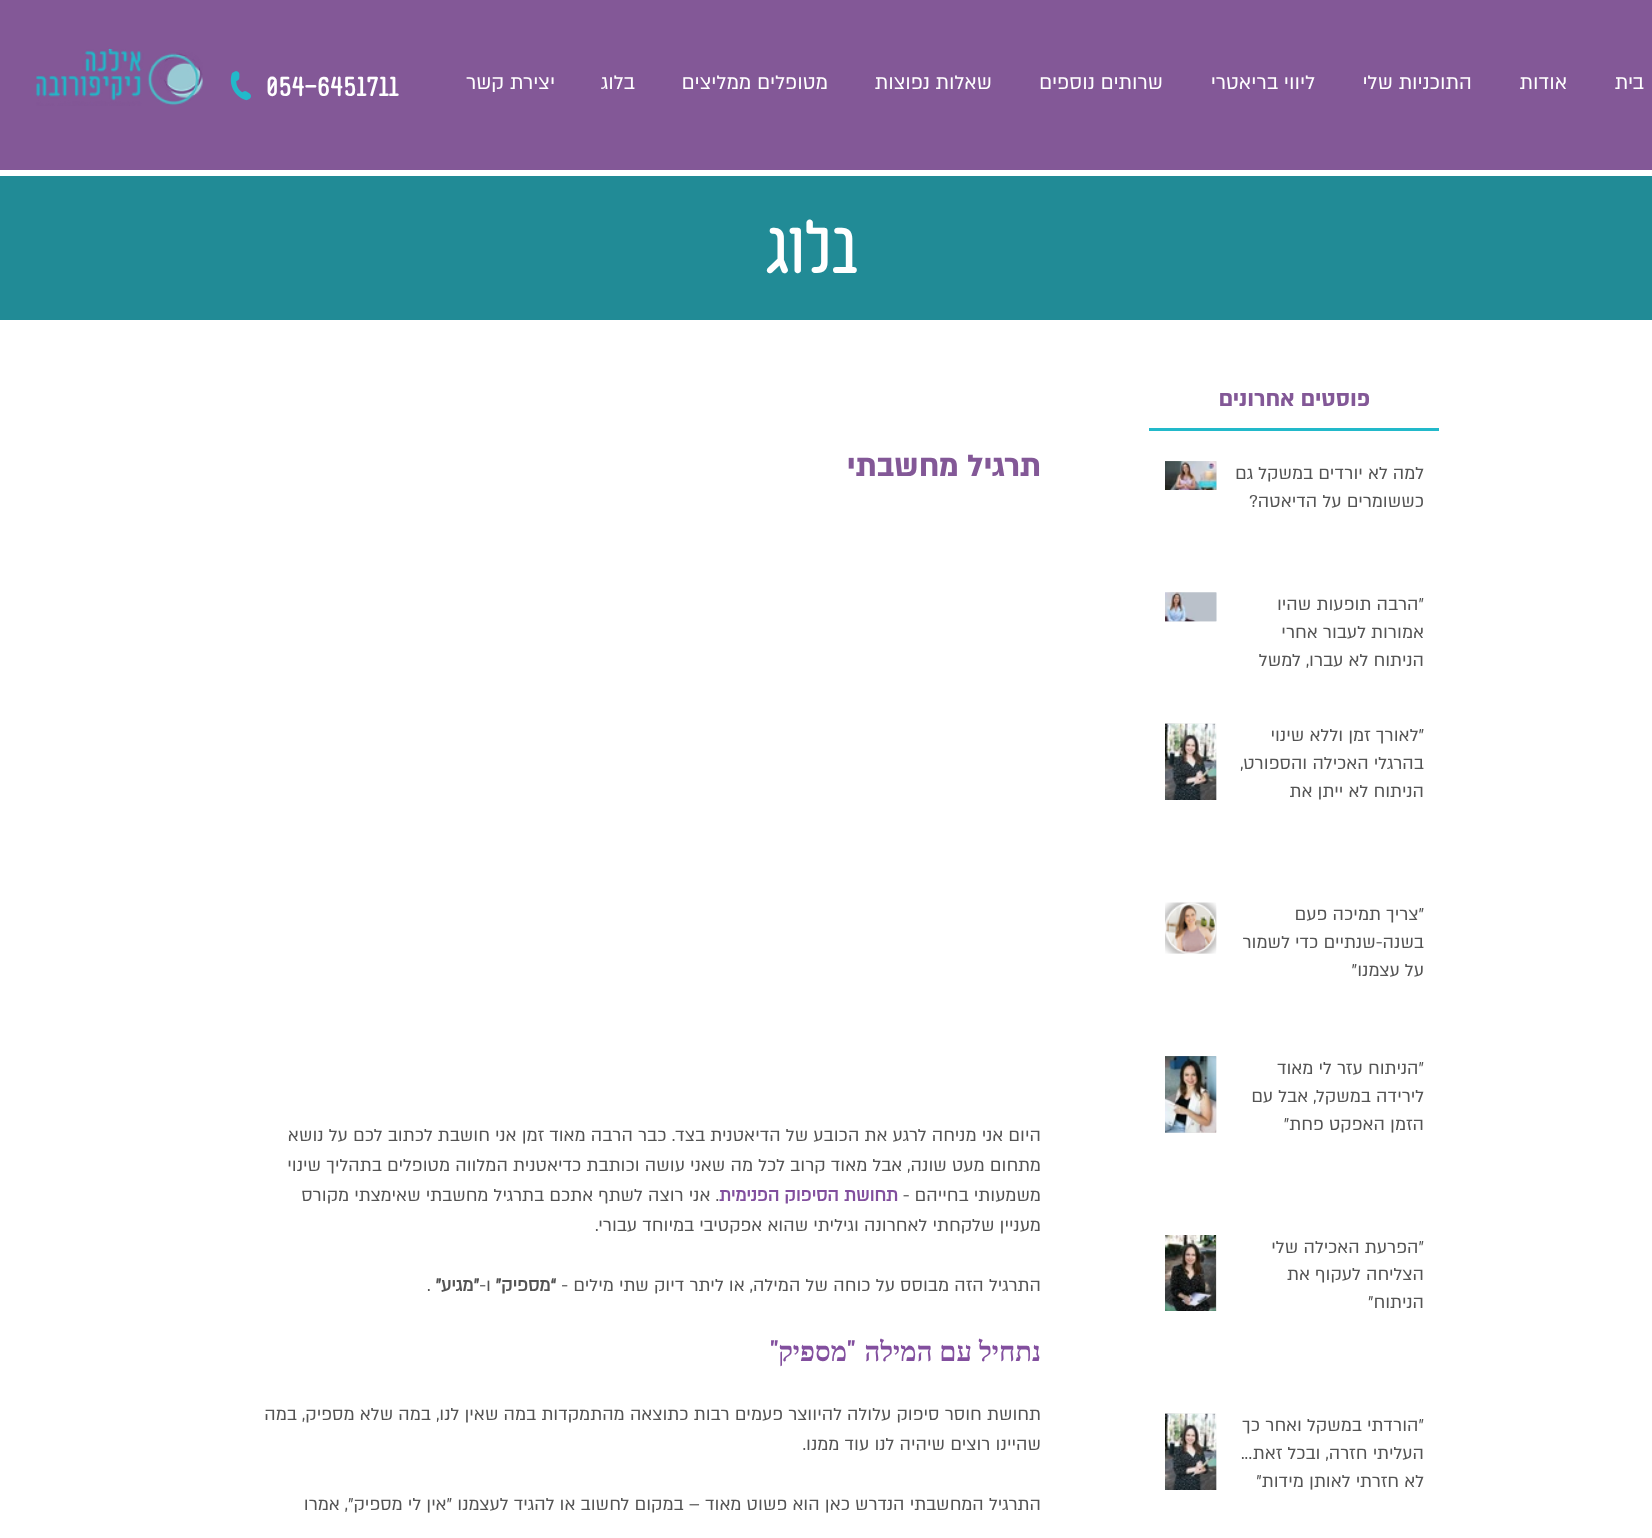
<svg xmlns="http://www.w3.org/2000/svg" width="1652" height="1538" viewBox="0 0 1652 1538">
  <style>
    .t1 { font: 22.5px 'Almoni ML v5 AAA'; direction: rtl; fill: #fff; }
    .t2 { font: bold 37.5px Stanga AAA; fill: #fff; }
    .t3 { font: bold 88px Stanga AAA; direction: rtl; fill: #fff; }
    .t4 { font: bold 25px 'Almoni ML v5 AAA'; direction: rtl; fill: #835897; }
    .t5 { font: 20px 'Almoni ML v5 AAA'; direction: rtl; fill: #545454; }
    .t6 { font: bold 35px 'Almoni ML v5 AAA'; direction: rtl; fill: #835897; }
    .t7 { font: bold 20px 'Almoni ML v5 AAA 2'; direction: rtl; fill: #824f9e; }
    .t8 { font: bold 20px 'Almoni ML v5 AAA 2'; direction: rtl; fill: #545454; }
    .t9 { font: 20px 'Almoni ML v5 AAA'; fill: #545454; }
    .t10 { font: bold 27.5px Liberation Serif; direction: rtl; fill: #824f9e; }
    .t11 { font: bold 27.5px Noticia Text; direction: rtl; fill: #824f9e; }
  </style>
  <rect width="100%" height="100%" fill="#fff"/>
  <rect x="0" y="0" width="1652" height="170" fill="#835897"/>
  <text x="1644" y="89" class="t1">בית</text>
  <text x="1567" y="89" class="t1">אודות</text>
  <text x="1472" y="89" class="t1">התוכניות שלי</text>
  <text x="1315" y="89" class="t1">ליווי בריאטרי</text>
  <text x="1163" y="89" class="t1">שרותים נוספים</text>
  <text x="992" y="89" class="t1">שאלות נפוצות</text>
  <text x="828" y="89" class="t1">מטופלים ממליצים</text>
  <text x="635" y="89" class="t1">בלוג</text>
  <text x="555" y="89" class="t1">יצירת קשר</text>
  <text x="266" y="96" class="t2">054-6451711</text>
  <image x="230" y="71" width="21" height="30" href="images/1.png"/>
  <image x="36" y="48" width="167" height="58" href="images/2.png"/>
  <rect x="0" y="176" width="1652" height="144" fill="#218b96"/>
  <text x="858" y="273" class="t3">בלוג</text>
  <text x="1370" y="406" class="t4">פוסטים אחרונים</text>
  <rect x="1149" y="428" width="290" height="3" fill="#22b9ca"/>
  <text x="1424" y="479" class="t5">למה לא יורדים במשקל גם</text>
  <text x="1424" y="507" class="t5">כששומרים על הדיאטה?</text>
  <image x="1165" y="461" width="52" height="29" href="images/3.png"/>
  <image x="1165" y="461" width="52" height="29" href="images/4.png"/>
  <text x="1424" y="610" class="t5">״הרבה תופעות שהיו</text>
  <text x="1424" y="638" class="t5">אמורות לעבור אחרי</text>
  <text x="1424" y="666" class="t5">הניתוח לא עברו, למשל</text>
  <image x="1165" y="592" width="52" height="30" href="images/5.png"/>
  <image x="1165" y="592" width="52" height="30" href="images/6.png"/>
  <text x="1424" y="741" class="t5">"לאורך זמן וללא שינוי</text>
  <text x="1424" y="769" class="t5">בהרגלי האכילה והספורט,</text>
  <text x="1424" y="797" class="t5">הניתוח לא ייתן את</text>
  <image x="1165" y="723" width="52" height="77" href="images/7.png"/>
  <image x="1165" y="723" width="52" height="77" href="images/8.png"/>
  <text x="1424" y="920" class="t5">"צריך תמיכה פעם</text>
  <text x="1424" y="948" class="t5">בשנה-שנתיים כדי לשמור</text>
  <text x="1424" y="976" class="t5">על עצמנו"</text>
  <image x="1165" y="902" width="52" height="52" href="images/9.png"/>
  <image x="1165" y="902" width="51" height="52" href="images/10.png"/>
  <text x="1424" y="1074" class="t5">״הניתוח עזר לי מאוד</text>
  <text x="1424" y="1102" class="t5">לירידה במשקל, אבל עם</text>
  <text x="1424" y="1130" class="t5">הזמן האפקט פחת״</text>
  <image x="1165" y="1056" width="52" height="77" href="images/11.png"/>
  <image x="1165" y="1056" width="52" height="77" href="images/12.png"/>
  <text x="1424" y="1253" class="t5">״הפרעת האכילה שלי</text>
  <text x="1424" y="1280" class="t5">הצליחה לעקוף את</text>
  <text x="1424" y="1308" class="t5">הניתוח״</text>
  <image x="1216" y="1235" width="1" height="76" href="images/13.png"/>
  <image x="1165" y="1235" width="51" height="76" href="images/14.png"/>
  <text x="1424" y="1431" class="t5">״הורדתי במשקל ואחר כך</text>
  <text x="1424" y="1459" class="t5">העליתי חזרה, ובכל זאת...</text>
  <text x="1424" y="1487" class="t5">לא חזרתי לאותן מידות״</text>
  <image x="1165" y="1413" width="52" height="77" href="images/7.png"/>
  <image x="1165" y="1413" width="52" height="77" href="images/8.png"/>
  <text x="1041" y="476" class="t6">תרגיל מחשבתי</text>
  <text x="1041" y="1141" class="t5">היום אני מניחה לרגע את הכובע של הדיאטנית בצד. כבר הרבה מאוד זמן אני חושבת לכתוב לכם על נושא</text>
  <text x="1041" y="1171" class="t5">מתחום מעט שונה, אבל מאוד קרוב לכל מה שאני עושה וכותבת כדיאטנית המלווה מטופלים בתהליך שינוי</text>
  <text x="1041" y="1201" class="t5">משמעותי בחייהם -</text>
  <text x="898" y="1201" class="t7">תחושת הסיפוק הפנימית</text>
  <text x="719" y="1201" class="t5">. אני רוצה לשתף אתכם בתרגיל מחשבתי שאימצתי מקורס</text>
  <text x="1041" y="1231" class="t5">מעניין שלקחתי לאחרונה וגיליתי שהוא אפקטיבי במיוחד עבורי.</text>
  <text x="1041" y="1291" class="t5">התרגיל הזה מבוסס על כוחה של המילה, או ליתר דיוק שתי מילים -</text>
  <text x="556" y="1291" class="t8">“מספיק"</text>
  <text x="491" y="1291" class="t5">ו-</text>
  <text x="479" y="1291" class="t8">”מגיע"</text>
  <text x="427" y="1291" class="t9">.</text>
  <text x="1041" y="1361" class="t10">נתחיל עם המילה</text>
  <text x="856" y="1361" class="t11">"</text>
  <text x="779" y="1361" class="t11">"</text>
  <text x="847" y="1361" class="t10">מספיק</text>
  <text x="1041" y="1420" class="t5">תחושת חוסר סיפוק עלולה להיווצר פעמים רבות כתוצאה מהתמקדות במה שאין לנו, במה שלא מספיק, במה</text>
  <text x="1041" y="1450" class="t5">שהיינו רוצים שיהיה לנו עוד ממנו.</text>
  <text x="1041" y="1510" class="t5">התרגיל המחשבתי הנדרש כאן הוא פשוט מאוד – במקום לחשוב או להגיד לעצמנו "אין לי מספיק", אמרו</text>
</svg>
